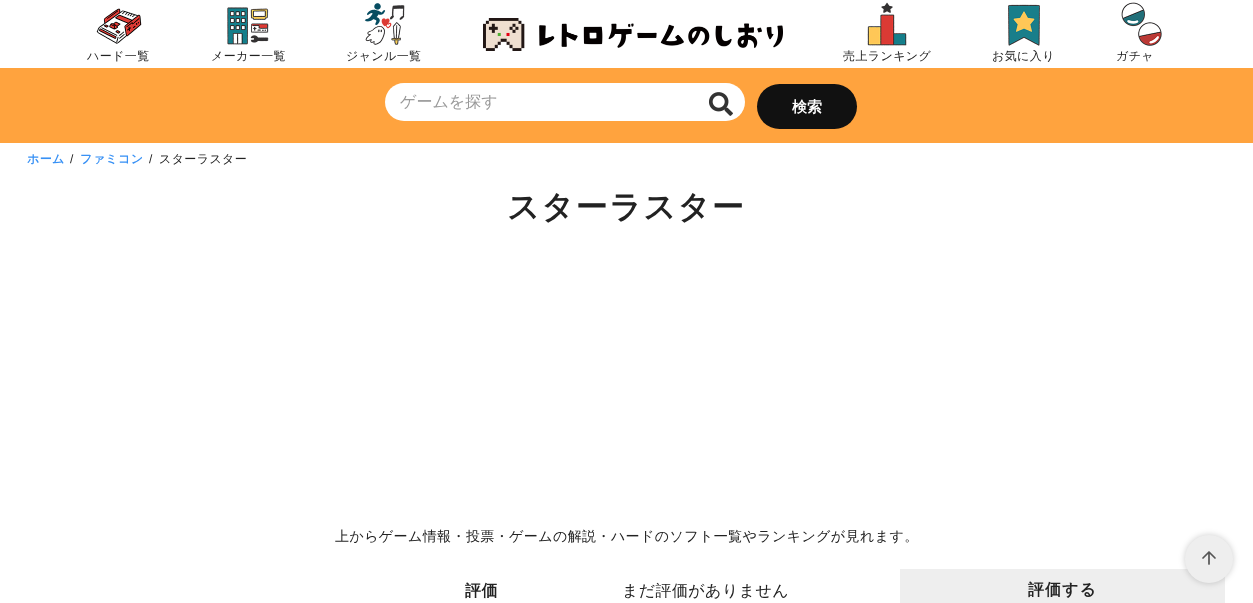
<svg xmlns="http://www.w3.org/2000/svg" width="1253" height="603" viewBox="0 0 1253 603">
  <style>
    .t1 { font: 500 12px WenQuanYi Zen Hei; letter-spacing: 0.4px; fill: #222; }
    .t2 { font: 500 16px WenQuanYi Zen Hei; fill: #999; }
    .t3 { font: bold 15px WenQuanYi Zen Hei; fill: #fff; }
    .t4 { font: bold 12px WenQuanYi Zen Hei; letter-spacing: 0.4px; fill: #3891f5; }
    .t5 { font: 12px Liberation Sans; letter-spacing: 0.4px; fill: #222; }
    .t6 { font: bold 32px WenQuanYi Zen Hei; letter-spacing: 1.5px; fill: #222; }
    .t7 { font: 500 14px WenQuanYi Zen Hei; letter-spacing: 0.4px; fill: #222; }
    .t8 { font: bold 16px WenQuanYi Zen Hei; letter-spacing: 0.4px; fill: #222; }
    .t9 { font: 500 16px WenQuanYi Zen Hei; letter-spacing: 0.4px; fill: #222; }
    .t10 { font: bold 16px WenQuanYi Zen Hei; letter-spacing: 1px; fill: #222; }
  </style>
  <rect width="100%" height="100%" fill="#fff"/>
  <image x="483" y="18" width="300" height="33" href="images/1.png"/>
  <image x="96" y="8" width="46" height="36" href="images/2.png"/>
  <text x="87" y="60" class="t1">ハード一覧</text>
  <image x="227" y="7" width="42" height="38" href="images/3.png"/>
  <text x="211" y="60" class="t1">メーカー一覧</text>
  <image x="364" y="3" width="41" height="42" href="images/4.png"/>
  <text x="346" y="60" class="t1">ジャンル一覧</text>
  <image x="867" y="2" width="40" height="44" href="images/5.png"/>
  <text x="843" y="60" class="t1">売上ランキング</text>
  <image x="1008" y="4" width="32" height="42" href="images/6.png"/>
  <text x="992" y="60" class="t1">お気に入り</text>
  <image x="1121" y="2" width="41" height="44" href="images/7.png"/>
  <text x="1116" y="60" class="t1">ガチャ</text>
  <rect x="0" y="68" width="1253" height="75" fill="#ffa33e"/>
  <rect x="385" y="83" width="360" height="38" rx="19" fill="#fff"/>
  <text x="400" y="107" class="t2">ゲームを探す</text>
  <image x="709" y="92" width="24" height="24" href="images/8.png"/>
  <rect x="757" y="84" width="100" height="45" rx="22.5" fill="#111"/>
  <text x="792" y="112" class="t3">検索</text>
  <text x="27" y="163" class="t4">ホーム</text>
  <text x="70" y="163" class="t5">/</text>
  <text x="80" y="163" class="t4">ファミコン</text>
  <text x="149" y="163" class="t5">/</text>
  <text x="159" y="163" class="t1">スターラスター</text>
  <text x="507" y="218" class="t6">スターラスター</text>
  <text x="335" y="541" class="t7">上からゲーム情報・投票・ゲームの解説・ハードのソフト一覧やランキングが見れます。</text>
  <text x="465" y="596" class="t8">評価</text>
  <text x="622" y="596" class="t9">まだ評価がありません</text>
  <rect x="900" y="569" width="325" height="34" fill="#eee"/>
  <text x="1028" y="595" class="t10">評価する</text>
  <rect x="1185" y="535" width="48" height="48" rx="24" fill="#00000033" filter="blur(3px)"/>
  <circle cx="1209" cy="559" r="24" fill="#eee"/>
  <path d="M1209 564V552M1203 558L1209 552L1215 558" fill="none" stroke="#555" stroke-width="1.7" stroke-linecap="round" stroke-linejoin="round"/>
</svg>
